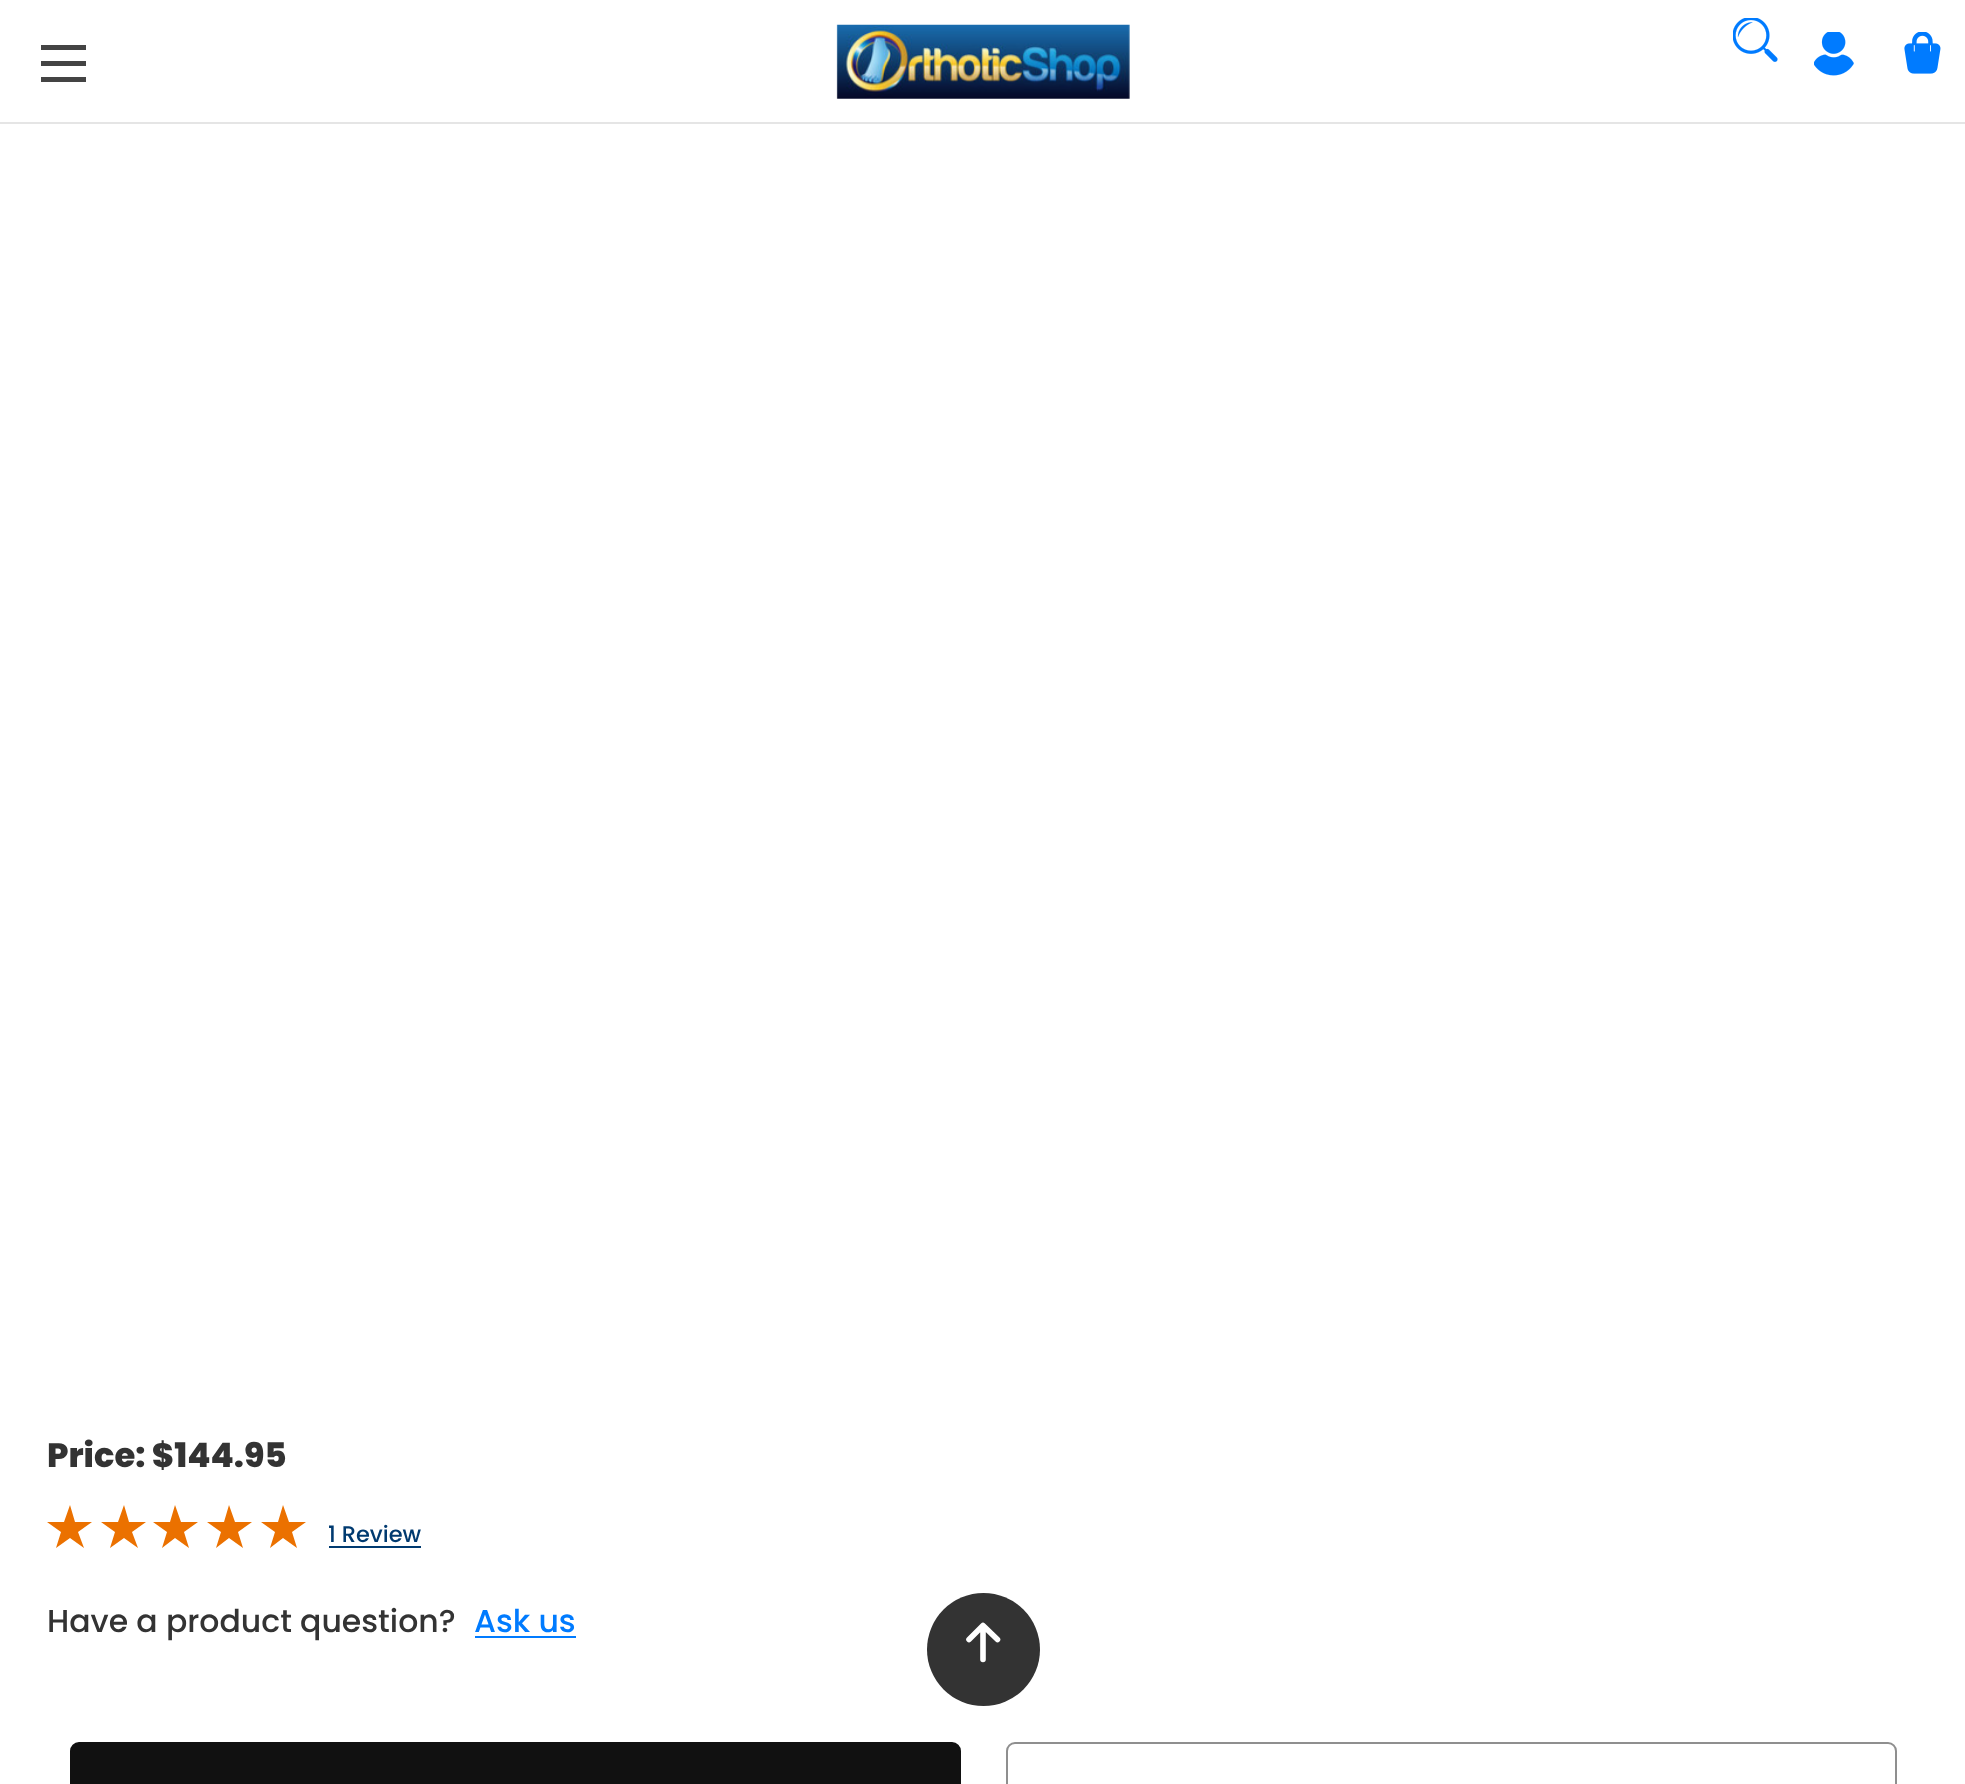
<svg xmlns="http://www.w3.org/2000/svg" width="1965" height="1784" viewBox="0 0 1965 1784">
  <style>
    .t1 { font: 800 33.75px Poppins; fill: #333; }
    .t2 { font: 500 22.5px Poppins; fill: #003a70; }
    .t3 { font: 500 31.5px Poppins; fill: #333; }
    .t4 { font: 500 31.5px Poppins; fill: #007bff; }
  </style>
  <rect width="100%" height="100%" fill="#fff"/>
  <rect x="0" y="122" width="1965" height="2" fill="#e5e5e5"/>
  <rect x="41" y="61" width="45" height="5" fill="#444"/>
  <rect x="41" y="45" width="45" height="5" fill="#444"/>
  <rect x="41" y="77" width="45" height="5" fill="#444"/>
  <image x="836" y="24" width="294" height="75" href="images/1.png"/>
  <image x="1733" y="18" width="45" height="44" href="images/2.png"/>
  <image x="1814" y="32" width="40" height="44" href="images/3.png"/>
  <image x="1904" y="32" width="37" height="42" href="images/4.png"/>
  <text x="47" y="1467" class="t1">Price: $144.95</text>
  <path d="M70 1505L75 1522H92L78 1532L84 1548L70 1538L56 1548L61 1532L47 1522H64Z" fill="#eb7100"/>
  <path d="M124 1505L129 1522H146L132 1532L138 1548L124 1538L110 1548L115 1532L101 1522H118Z" fill="#eb7100"/>
  <path d="M175 1505L181 1522H198L184 1532L189 1548L175 1538L162 1548L167 1532L153 1522H170Z" fill="#eb7100"/>
  <path d="M229 1505L235 1522H252L238 1532L243 1548L229 1538L216 1548L221 1532L207 1522H224Z" fill="#eb7100"/>
  <path d="M283 1505L289 1522H306L292 1532L297 1548L283 1538L270 1548L275 1532L261 1522H278Z" fill="#eb7100"/>
  <text x="328" y="1542" class="t2">1 Review</text>
  <rect x="329" y="1546" width="92" height="2" fill="#003a70"/>
  <text x="47" y="1632" class="t3">Have a product question?</text>
  <text x="474" y="1632" class="t4">Ask us</text>
  <rect x="475" y="1636" width="101" height="2" fill="#007bff"/>
  <rect x="71" y="1743" width="889" height="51" rx="8" fill="#111" stroke="#111" stroke-width="2"/>
  <rect x="1007" y="1743" width="889" height="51" rx="8" fill="none" stroke="#8f8f8f" stroke-width="2"/>
  <circle cx="983.5" cy="1649.5" r="56.5" fill="#333"/>
  <path d="M997.5 1639.5L983 1625.5L969 1639.5M983 1659.5V1628.5" fill="none" stroke="#fff" stroke-width="5.6" stroke-linecap="round" stroke-linejoin="round"/>
</svg>
